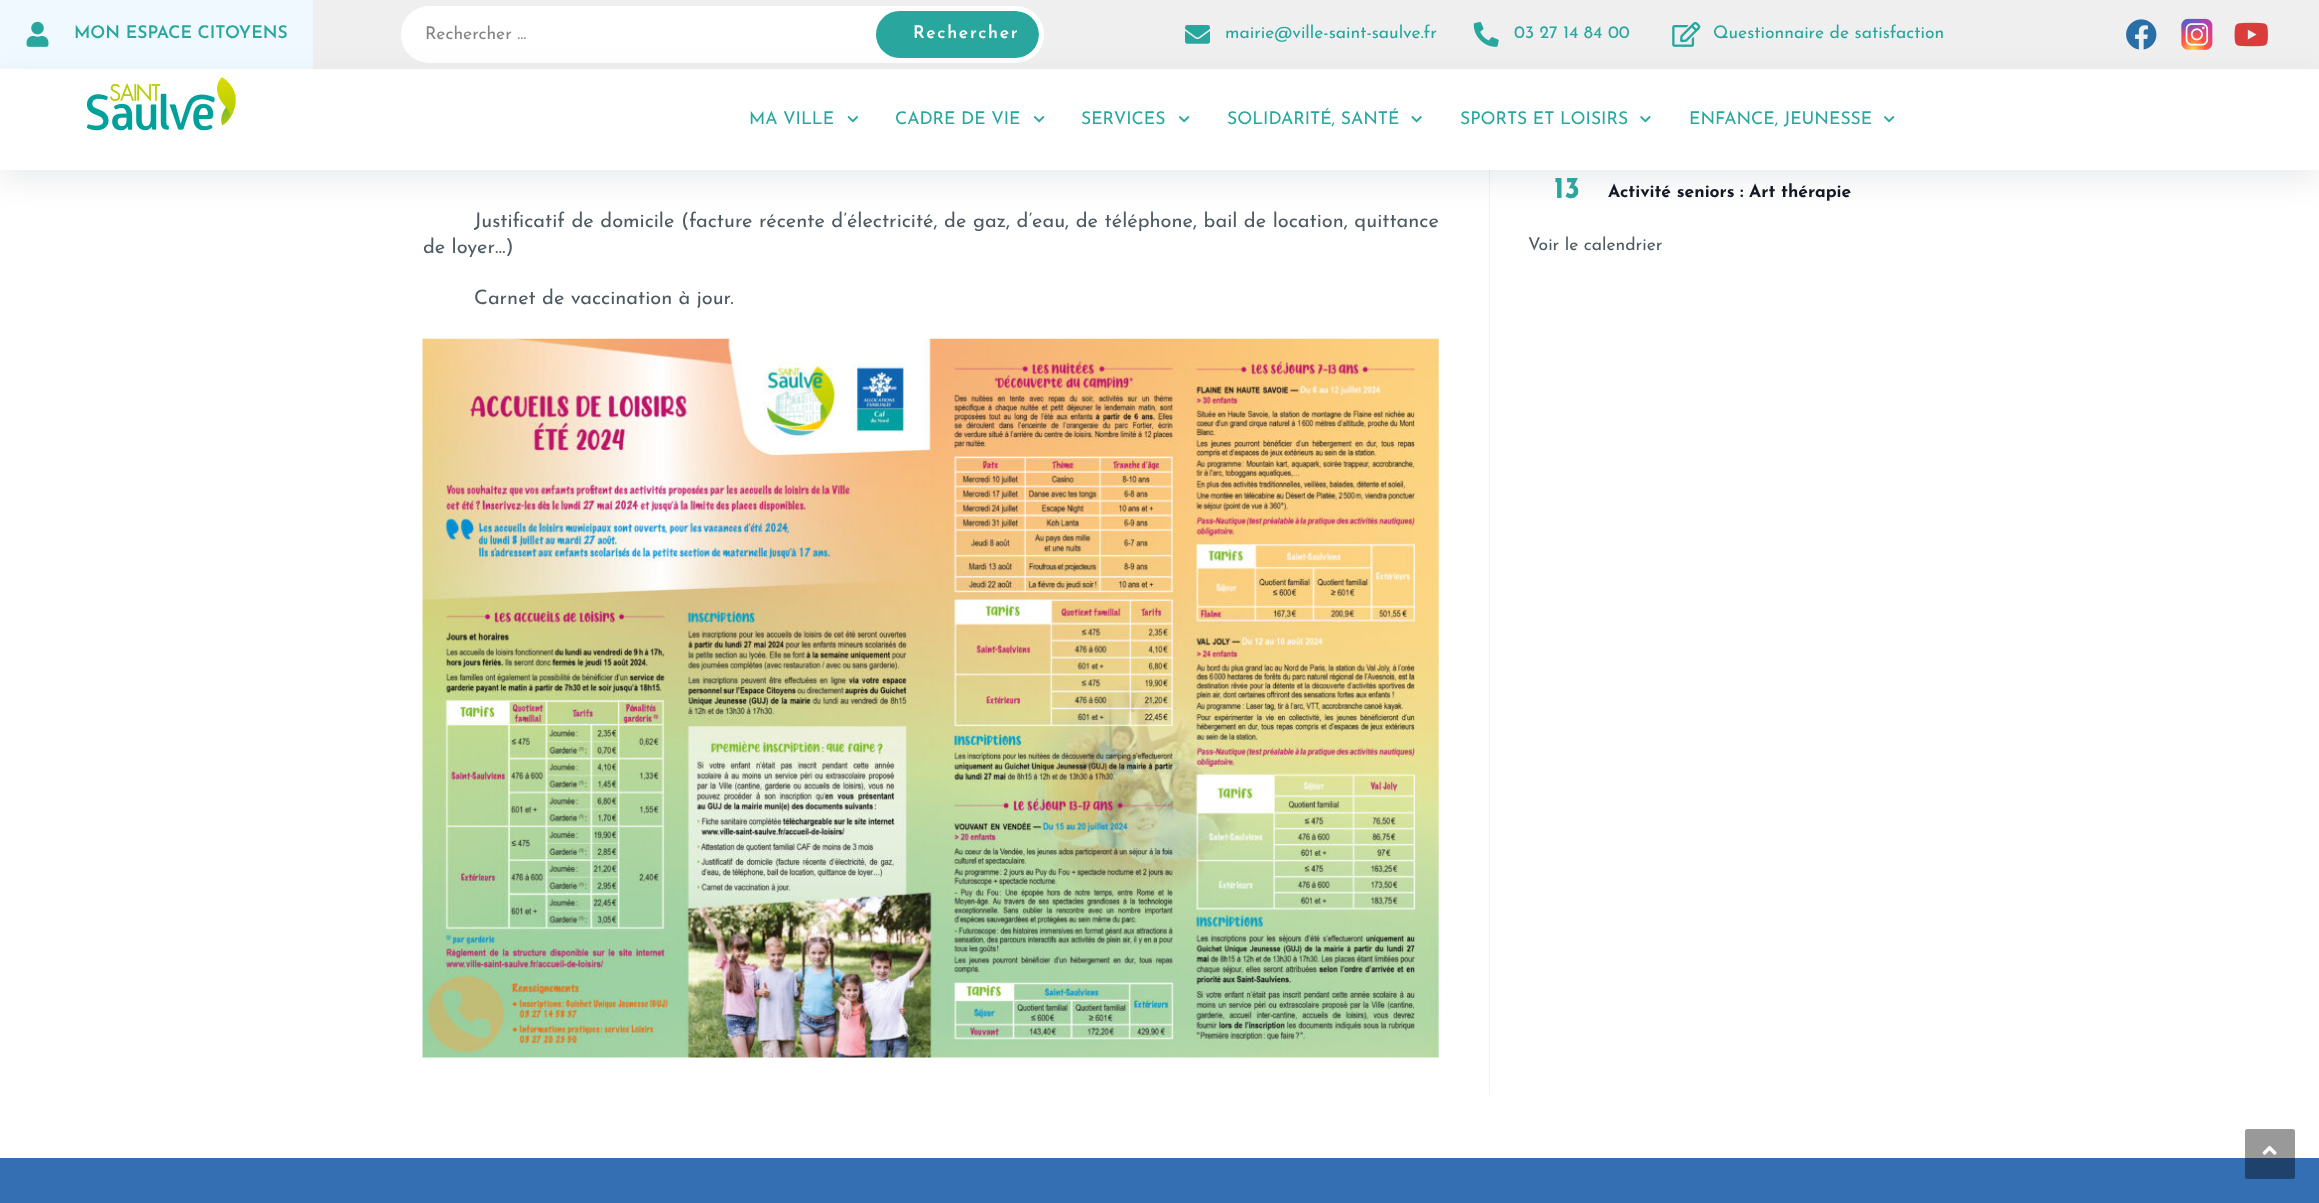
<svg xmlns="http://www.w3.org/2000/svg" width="2319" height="1203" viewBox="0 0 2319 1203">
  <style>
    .t1 { font: 600 17.5px Josefin Sans; fill: #29a79f; }
    .t2 { font: 17.5px Josefin Sans; fill: #858585; }
    .t3 { font: 600 17.5px Josefin Sans; letter-spacing: 1.75px; fill: #fff; }
    .t4 { font: 17.5px Josefin Sans; fill: #29a79f; }
    .t5 { font: 20px Josefin Sans; fill: #4e5b62; }
    .t6 { font: bold 30px Josefin Sans; fill: #29a79f; }
    .t7 { font: bold 17.5px Josefin Sans; fill: #141827; }
    .t8 { font: 17.5px Josefin Sans; fill: #4e5b62; }
  </style>
  <defs>
    <clipPath id="clip1"><rect x="406" y="11" width="633" height="47" rx="23"/></clipPath>
  </defs>
  <rect width="100%" height="100%" fill="#fff"/>
  <rect x="313" y="0" width="2006" height="69" fill="#efefef"/>
  <rect x="0" y="0" width="313" height="69" fill="#eff9ff"/>
  <image x="26" y="21" width="23" height="26" href="images/1.png"/>
  <text x="74" y="38" class="t1">MON ESPACE CITOYENS</text>
  <rect x="401" y="6" width="643" height="57" rx="28" fill="#fff"/>
  <text x="425" y="39" class="t2">Rechercher ...</text>
  <g clip-path="url(#clip1)">
    <rect x="876" y="11" width="163" height="47" rx="23.5" fill="#29a79f"/>
  </g>
  <text x="913" y="38" class="t3">Rechercher</text>
  <image x="1185" y="25" width="25" height="19" href="images/2.png"/>
  <text x="1225" y="38" class="t4">mairie@ville-saint-saulve.fr</text>
  <image x="1473" y="21" width="26" height="26" href="images/3.png"/>
  <text x="1514" y="38" class="t4">03 27 14 84 00</text>
  <image x="1672" y="21" width="29" height="26" href="images/4.png"/>
  <text x="1713" y="38" class="t4">Questionnaire de satisfaction</text>
  <image x="2126" y="19" width="31" height="31" href="images/5.png"/>
  <image x="2181" y="18" width="32" height="32" href="images/6.png"/>
  <image x="2234" y="22" width="34" height="25" href="images/7.png"/>
  <rect x="1489" y="170" width="1" height="925" fill="#f1f1f1"/>
  <rect x="0" y="79" width="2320" height="101" fill="#959da533" filter="blur(15px)"/>
  <rect x="0" y="69" width="2319" height="101" fill="#fff"/>
  <image x="86" y="77" width="150" height="54" href="images/8.png"/>
  <text x="749" y="124" class="t4">MA VILLE</text>
  <image x="847" y="116" width="11" height="7" href="images/9.png"/>
  <text x="895" y="124" class="t4">CADRE DE VIE</text>
  <image x="1033" y="116" width="12" height="7" href="images/10.png"/>
  <text x="1081" y="124" class="t4">SERVICES</text>
  <image x="1178" y="116" width="12" height="7" href="images/10.png"/>
  <text x="1227" y="124" class="t4">SOLIDARITÉ, SANTÉ</text>
  <image x="1411" y="116" width="11" height="7" href="images/11.png"/>
  <text x="1460" y="124" class="t4">SPORTS ET LOISIRS</text>
  <image x="1640" y="116" width="11" height="7" href="images/12.png"/>
  <text x="1689" y="124" class="t4">ENFANCE, JEUNESSE</text>
  <image x="1883" y="116" width="12" height="7" href="images/10.png"/>
  <text x="474" y="227" word-spacing="0.25" class="t5">Justificatif de domicile (facture récente d’électricité, de gaz, d’eau, de téléphone, bail de location, quittance</text>
  <text x="423" y="253" class="t5">de loyer…)</text>
  <text x="474" y="304" class="t5">Carnet de vaccination à jour.</text>
  <image x="422" y="338" width="1017" height="720" href="images/13.png"/>
  <text x="1554" y="198" class="t6">13</text>
  <text x="1608" y="197" class="t7">Activité seniors : Art thérapie</text>
  <text x="1528" y="250" class="t8">Voir le calendrier</text>
  <rect x="0" y="1158" width="2319" height="45" fill="#336fb2"/>
  <rect x="2245" y="1129" width="50" height="50" rx="2.5" fill="#00000066"/>
  <image x="2262" y="1145" width="15" height="10" href="images/14.png"/>
</svg>
